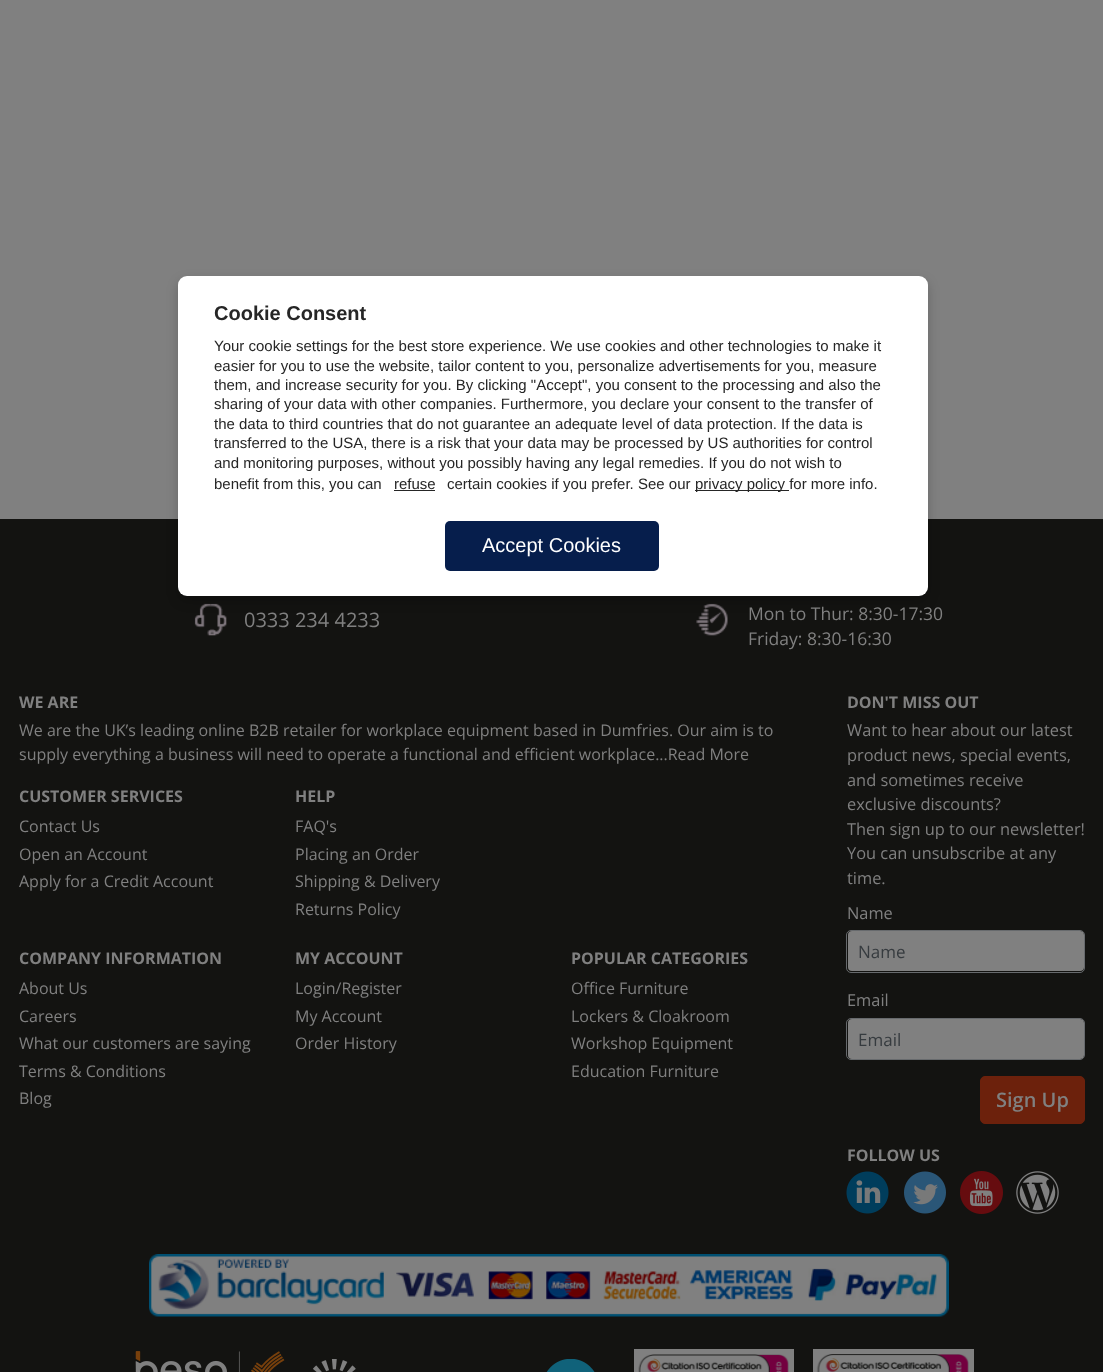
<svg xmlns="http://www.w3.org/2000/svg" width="1103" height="1372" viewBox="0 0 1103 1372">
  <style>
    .t1 { font: bold 20px Liberation Sans; fill: #262626; }
    .t2 { font: 15px Liberation Sans; fill: #262626; }
    .t3 { font: 20px Liberation Sans; fill: #fff; }
    .t4 { font: 20px Open Sans; fill: #808080; }
    .t5 { font: 17.5px Open Sans; fill: #808080; }
    .t6 { font: bold 16px Open Sans; fill: #808080; }
    .t7 { font: 16px Open Sans; fill: #808080; }
    .t8 { font: 16.4px Open Sans; fill: #808080; }
    .t9 { font: 17px Open Sans; fill: #363b3f; }
    .t10 { font: 600 20px Open Sans; fill: #808080; }
  </style>
  <rect width="100%" height="100%" fill="#808080"/>
  <rect x="0" y="519" width="1103" height="853" fill="#131311"/>
  <image x="194" y="603" width="33" height="33" href="images/1.png"/>
  <image x="696" y="603" width="32" height="33" href="images/2.png"/>
  <rect x="178" y="281" width="750" height="320" rx="9" fill="#00000033" filter="blur(6px)"/>
  <rect x="178" y="276" width="750" height="320" rx="9" fill="#fff"/>
  <text x="214" y="320" class="t1">Cookie Consent</text>
  <text x="214" y="351" class="t2">Your cookie settings for the best store experience. We use cookies and other technologies to make it</text>
  <text x="214" y="371" class="t2">easier for you to use the website, tailor content to you, personalize advertisements for you, measure</text>
  <text x="214" y="390" class="t2">them, and increase security for you. By clicking "Accept", you consent to the processing and also the</text>
  <text x="214" y="409" class="t2">sharing of your data with other companies. Furthermore, you declare your consent to the transfer of</text>
  <text x="214" y="429" class="t2">the data to third countries that do not guarantee an adequate level of data protection. If the data is</text>
  <text x="214" y="448" class="t2">transferred to the USA, there is a risk that your data may be processed by US authorities for control</text>
  <text x="214" y="468" class="t2">and monitoring purposes, without you possibly having any legal remedies. If you do not wish to</text>
  <text x="214" y="489" class="t2">benefit from this, you can</text>
  <text x="394" y="489" class="t2">refuse</text>
  <rect x="394" y="490" width="41" height="1" fill="#262626"/>
  <text x="447" y="489" class="t2">certain cookies if you prefer. See our</text>
  <rect x="695" y="490" width="94" height="1" fill="#262626"/>
  <text x="695" y="489" class="t2">privacy policy for more info.</text>
  <rect x="445" y="521" width="214" height="50" rx="5" fill="#061e4c"/>
  <text x="482" y="552" class="t3">Accept Cookies</text>
  <text x="244" y="627" class="t4">0333 234 4233</text>
  <text x="748" y="620" class="t5">Mon to Thur: 8:30-17:30</text>
  <text x="748" y="645" class="t5">Friday: 8:30-16:30</text>
  <text x="19" y="708" class="t6">WE ARE</text>
  <text x="19" y="736" class="t7">We are the UK’s leading online B2B retailer for workplace equipment based in Dumfries. Our aim is to</text>
  <text x="19" y="760" class="t7">supply everything a business will need to operate a functional and efficient workplace...Read More</text>
  <text x="19" y="802" class="t6">CUSTOMER SERVICES</text>
  <text x="19" y="832" class="t7">Contact Us</text>
  <text x="19" y="860" class="t7">Open an Account</text>
  <text x="19" y="887" class="t7">Apply for a Credit Account</text>
  <text x="295" y="802" class="t6">HELP</text>
  <text x="295" y="832" class="t7">FAQ's</text>
  <text x="295" y="860" class="t7">Placing an Order</text>
  <text x="295" y="887" class="t7">Shipping &amp; Delivery</text>
  <text x="295" y="915" class="t7">Returns Policy</text>
  <text x="19" y="964" class="t6">COMPANY INFORMATION</text>
  <text x="19" y="994" class="t7">About Us</text>
  <text x="19" y="1022" class="t7">Careers</text>
  <text x="19" y="1049" class="t7">What our customers are saying</text>
  <text x="19" y="1077" class="t7">Terms &amp; Conditions</text>
  <text x="19" y="1104" class="t7">Blog</text>
  <text x="295" y="964" class="t6">MY ACCOUNT</text>
  <text x="295" y="994" class="t7">Login/Register</text>
  <text x="295" y="1022" class="t7">My Account</text>
  <text x="295" y="1049" class="t7">Order History</text>
  <text x="571" y="964" class="t6">POPULAR CATEGORIES</text>
  <text x="571" y="994" class="t7">Office Furniture</text>
  <text x="571" y="1022" class="t7">Lockers &amp; Cloakroom</text>
  <text x="571" y="1049" class="t7">Workshop Equipment</text>
  <text x="571" y="1077" class="t7">Education Furniture</text>
  <text x="847" y="708" class="t6">DON'T MISS OUT</text>
  <text x="847" y="736" class="t8">Want to hear about our latest</text>
  <text x="847" y="761" class="t8">product news, special events,</text>
  <text x="847" y="786" class="t8">and sometimes receive</text>
  <text x="847" y="810" class="t8">exclusive discounts?</text>
  <text x="847" y="835" class="t8">Then sign up to our newsletter!</text>
  <text x="847" y="859" class="t8">You can unsubscribe at any</text>
  <text x="847" y="884" class="t8">time.</text>
  <text x="847" y="919" class="t8">Name</text>
  <rect x="848" y="931" width="236" height="40" rx="4" fill="#808080"/>
  <rect x="846.5" y="930.5" width="238" height="42" rx="4.5" fill="none" stroke="#676a6d"/>
  <text x="858" y="958" class="t9">Name</text>
  <text x="847" y="1006" class="t8">Email</text>
  <rect x="848" y="1019" width="236" height="40" rx="4" fill="#808080"/>
  <rect x="846.5" y="1018.5" width="238" height="41" rx="4.5" fill="none" stroke="#676a6d"/>
  <text x="858" y="1046" class="t9">Email</text>
  <rect x="980.5" y="1076.5" width="104" height="47" rx="4.5" fill="#6c210c" stroke="#6c210c"/>
  <text x="996" y="1107" class="t10">Sign Up</text>
  <text x="847" y="1161" class="t6">FOLLOW US</text>
  <image x="846" y="1171" width="43" height="43" href="images/3.png"/>
  <image x="904" y="1171" width="42" height="43" href="images/4.png"/>
  <image x="960" y="1171" width="43" height="43" href="images/5.png"/>
  <image x="1016" y="1171" width="43" height="43" href="images/6.png"/>
  <image x="149" y="1254" width="800" height="63" href="images/7.png"/>
  <image x="135" y="1351" width="150" height="21" href="images/8.png"/>
  <image x="313" y="1359" width="43" height="13" href="images/9.png"/>
  <image x="546" y="1359" width="49" height="13" href="images/10.png"/>
  <rect x="634" y="1349" width="160" height="23" fill="#808080"/>
  <image x="638" y="1354" width="151" height="18" href="images/11.png"/>
  <rect x="813" y="1349" width="161" height="23" fill="#808080"/>
  <image x="816" y="1354" width="153" height="18" href="images/12.png"/>
</svg>
